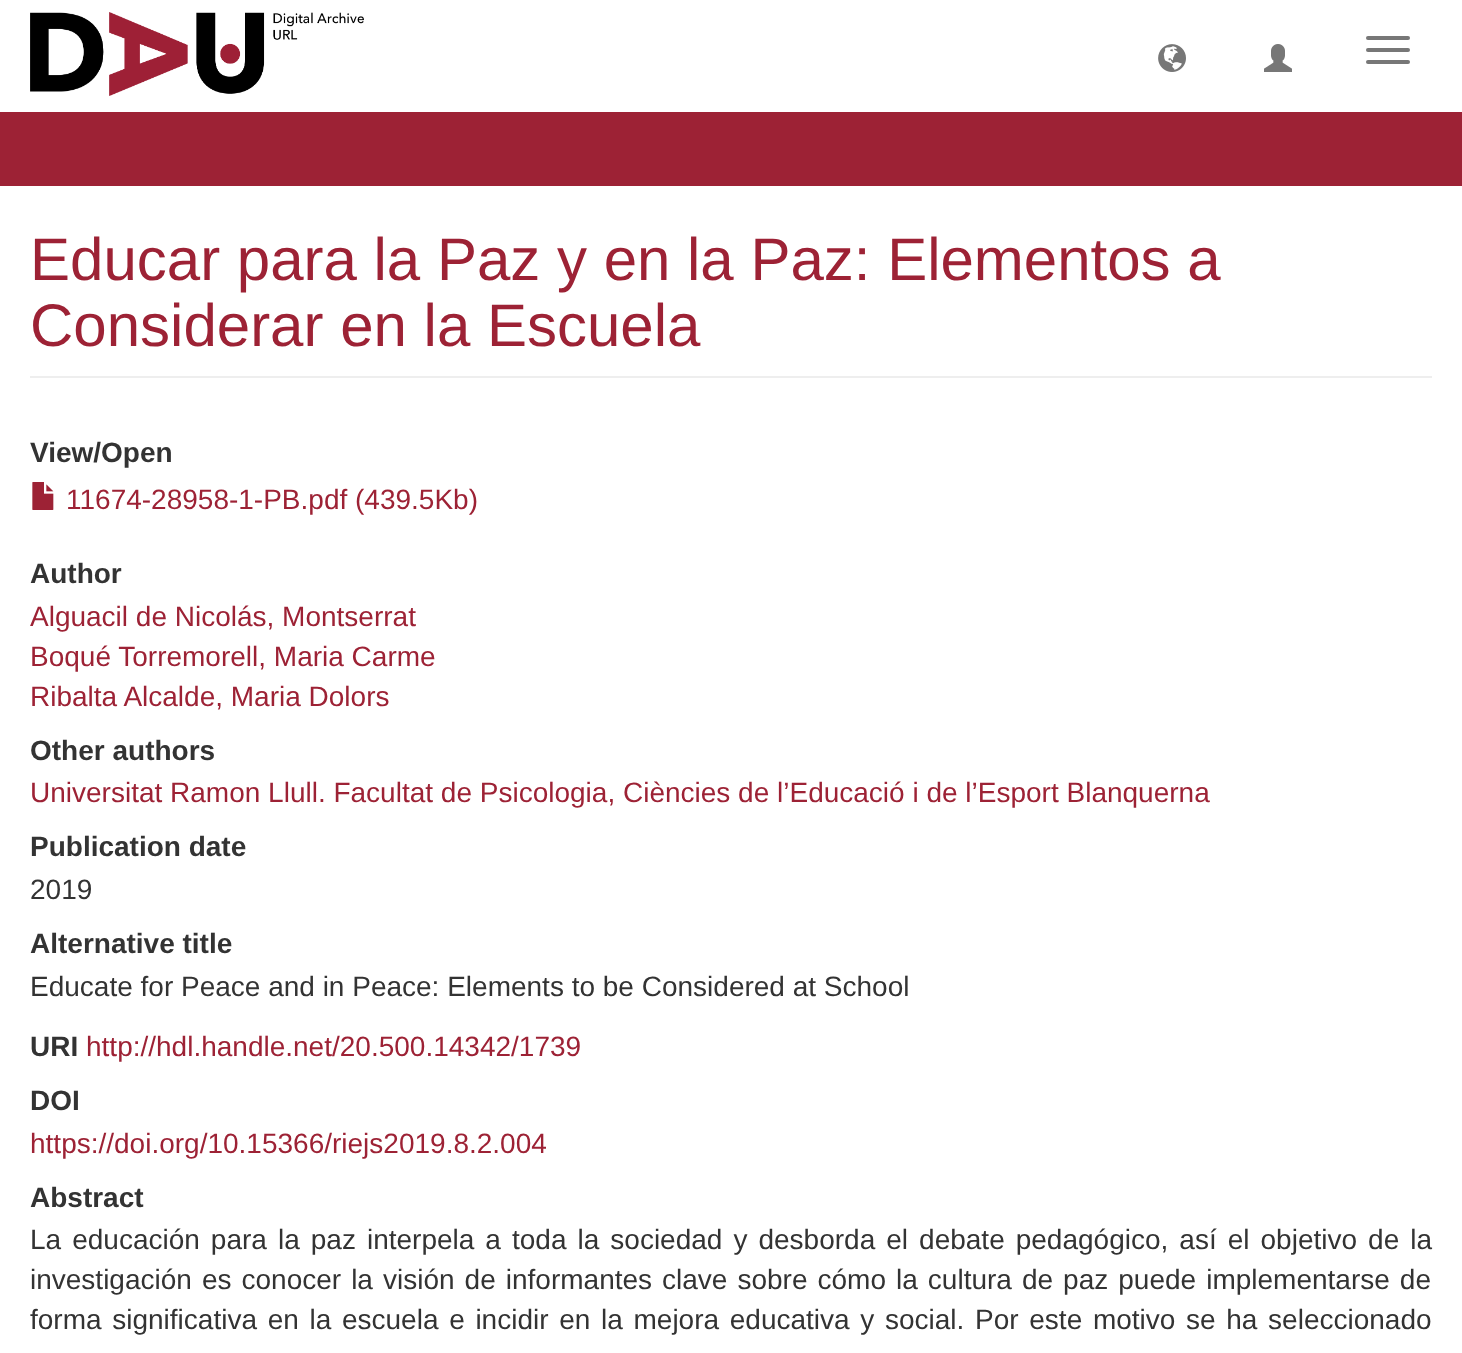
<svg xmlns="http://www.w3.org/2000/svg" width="1462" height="1353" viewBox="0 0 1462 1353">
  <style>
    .t1 { font: 60px Liberation Sans; fill: #9d2235; }
    .t2 { font: bold 28px Liberation Sans; fill: #333; }
    .t3 { font: 28px Liberation Sans; fill: #9d2235; }
    .t4 { font: 28px Liberation Sans; fill: #333; }
  </style>
  <rect width="100%" height="100%" fill="#fff"/>
  <image x="30" y="12" width="334" height="84" href="images/1.png"/>
  <image x="1158" y="44" width="28" height="28" href="images/2.png"/>
  <image x="1264" y="44" width="28" height="28" href="images/3.png"/>
  <rect x="1366" y="36" width="44" height="4" rx="2" fill="#777"/>
  <rect x="1366" y="48" width="44" height="4" rx="2" fill="#777"/>
  <rect x="1366" y="60" width="44" height="4" rx="2" fill="#777"/>
  <rect x="0" y="112" width="1462" height="74" fill="#9d2235"/>
  <rect x="30" y="376" width="1402" height="2" fill="#eee"/>
  <text x="30" y="280" class="t1">Educar para la Paz y en la Paz: Elementos a</text>
  <text x="30" y="346" class="t1">Considerar en la Escuela</text>
  <text x="30" y="462" class="t2">View/Open</text>
  <image x="32" y="482" width="22" height="28" href="images/4.png"/>
  <text x="66" y="509" class="t3">11674-28958-1-PB.pdf (439.5Kb)</text>
  <text x="30" y="583" class="t2">Author</text>
  <text x="30" y="626" class="t3">Alguacil de Nicolás, Montserrat</text>
  <text x="30" y="666" class="t3">Boqué Torremorell, Maria Carme</text>
  <text x="30" y="706" class="t3">Ribalta Alcalde, Maria Dolors</text>
  <text x="30" y="760" class="t2">Other authors</text>
  <text x="30" y="802" class="t3">Universitat Ramon Llull. Facultat de Psicologia, Ciències de l’Educació i de l’Esport Blanquerna</text>
  <text x="30" y="856" class="t2">Publication date</text>
  <text x="30" y="899" class="t4">2019</text>
  <text x="30" y="953" class="t2">Alternative title</text>
  <text x="30" y="996" class="t4">Educate for Peace and in Peace: Elements to be Considered at School</text>
  <text x="30" y="1056" class="t2">URI</text>
  <text x="86" y="1056" class="t3">http://hdl.handle.net/20.500.14342/1739</text>
  <text x="30" y="1110" class="t2">DOI</text>
  <text x="30" y="1153" class="t3">https://doi.org/10.15366/riejs2019.8.2.004</text>
  <text x="30" y="1207" class="t2">Abstract</text>
  <text x="30" y="1249" word-spacing="3.25" class="t4">La educación para la paz interpela a toda la sociedad y desborda el debate pedagógico, así el objetivo de la</text>
  <text x="30" y="1289" word-spacing="2.25" class="t4">investigación es conocer la visión de informantes clave sobre cómo la cultura de paz puede implementarse de</text>
  <text x="30" y="1329" word-spacing="2.9" class="t4">forma significativa en la escuela e incidir en la mejora educativa y social. Por este motivo se ha seleccionado</text>
</svg>
